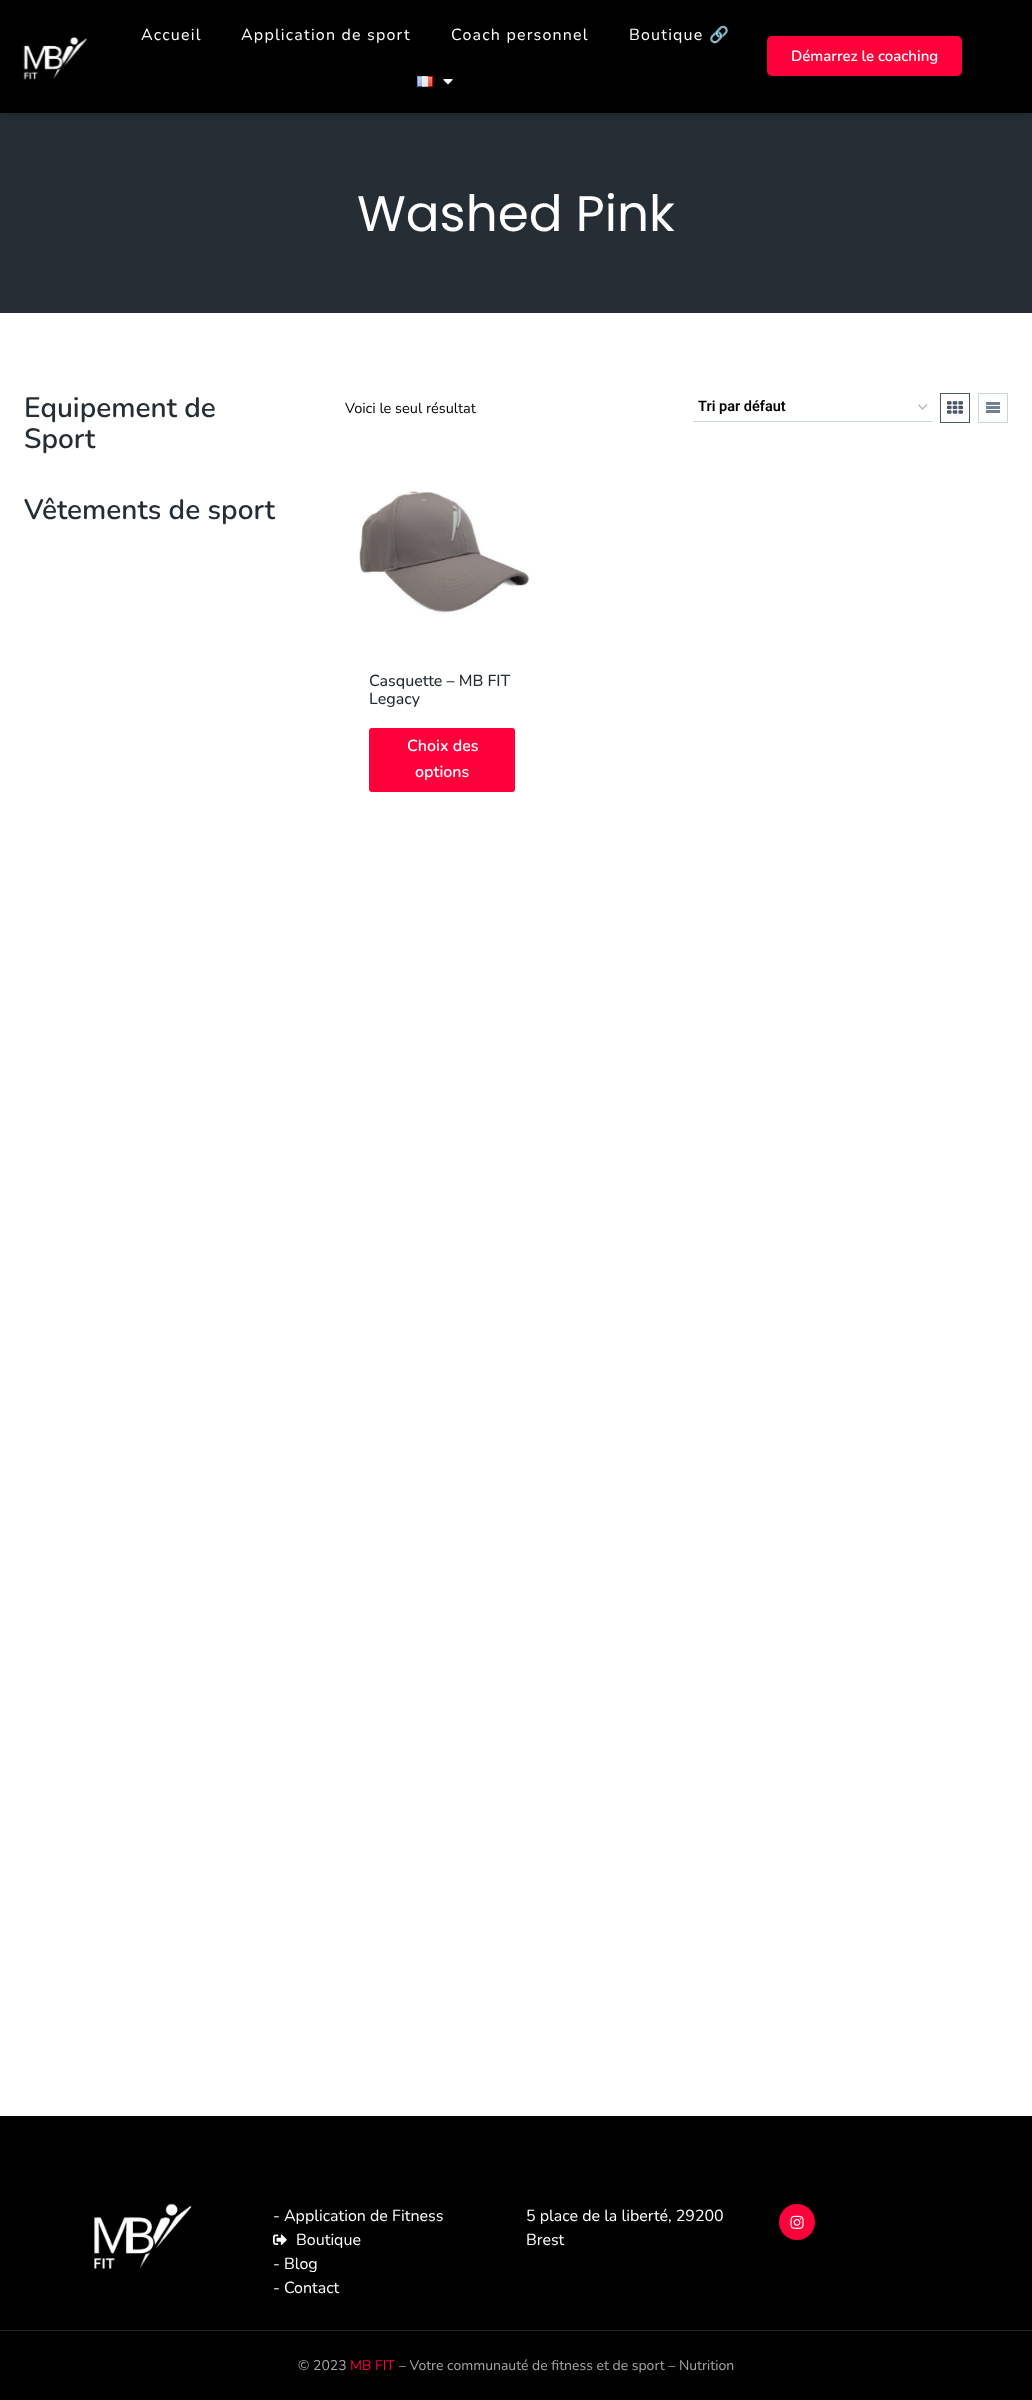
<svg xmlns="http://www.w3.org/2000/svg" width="1032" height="2400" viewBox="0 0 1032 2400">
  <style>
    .t1 { font: 16px Nunito; letter-spacing: 1.2px; fill: #fff; }
    .t2 { font: 16px Noto Color Emoji; letter-spacing: 1.2px; fill: #fff; }
    .t3 { font: 600 15px Nunito; fill: #fff; }
    .t4 { font: 50px Poppins; fill: #fff; }
    .t5 { font: 600 28px Nunito; fill: #252d35; }
    .t6 { font: 14.5px Nunito; fill: #000; }
    .t7 { font: 600 14.5px Roboto; fill: #000; }
    .t8 { font: 500 16px Nunito; fill: #252d35; }
    .t9 { font: 600 16px Nunito; fill: #fff; }
    .t10 { font: 16px Nunito; fill: #fff; }
    .t11 { font: 14px Nunito; fill: #a6a6a6; }
    .t12 { font: 14px Nunito; fill: #ff003b; }
  </style>
  <rect width="100%" height="100%" fill="#fff"/>
  <rect x="0" y="113" width="1032" height="200" fill="#252d35"/>
  <rect x="0" y="0" width="1032" height="113" fill="#00000040" filter="blur(5px)"/>
  <rect x="0" y="0" width="1032" height="113" fill="#000"/>
  <text x="141" y="40" class="t1">Accueil</text>
  <text x="241" y="40" class="t1">Application de sport</text>
  <text x="451" y="40" class="t1">Coach personnel</text>
  <text x="629" y="40" class="t1">Boutique</text>
  <text x="709" y="40" class="t2">🔗</text>
  <image x="417" y="76" width="16" height="11" href="images/1.png"/>
  <image x="443" y="79" width="10" height="6" href="images/2.png"/>
  <image x="23" y="37" width="65" height="43" href="images/3.png"/>
  <rect x="767" y="36" width="195" height="40" rx="5" fill="#ff003b"/>
  <text x="791" y="61" class="t3">Démarrez le coaching</text>
  <text x="357" y="231" class="t4">Washed Pink</text>
  <text x="24" y="417" class="t5">Equipement de</text>
  <text x="24" y="448" class="t5">Sport</text>
  <text x="24" y="519" class="t5">Vêtements de sport</text>
  <text x="345" y="413" class="t6">Voici le seul résultat</text>
  <path d="M918.5 404.5L922.5 409L927 404.5" fill="none" stroke="#bbb" stroke-width="1.4"/>
  <rect x="693" y="421" width="239" height="1" fill="#cbd5e0"/>
  <text x="698" y="411" class="t7">Tri par défaut</text>
  <rect x="940.5" y="393.5" width="29" height="29" fill="none" stroke="#4a5568"/>
  <image x="947" y="401" width="16" height="13" href="images/4.png"/>
  <rect x="978.5" y="393.5" width="29" height="29" fill="none" stroke="#cbd5e0"/>
  <image x="986" y="402" width="14" height="11" href="images/5.png"/>
  <image x="359" y="491" width="171" height="123" href="images/6.png"/>
  <text x="369" y="686" class="t8">Casquette – MB FIT</text>
  <text x="369" y="704" class="t8">Legacy</text>
  <rect x="369" y="728" width="146" height="64" rx="3" fill="#ff003b"/>
  <text x="407" y="751" class="t9">Choix des</text>
  <text x="415" y="777" class="t9">options</text>
  <rect x="0" y="2116" width="1032" height="214" fill="#000"/>
  <image x="94" y="2203" width="98" height="66" href="images/7.png"/>
  <text x="273" y="2221" class="t10">- Application de Fitness</text>
  <image x="273" y="2234" width="14" height="11" href="images/8.png"/>
  <text x="296" y="2245" class="t10">Boutique</text>
  <text x="273" y="2269" class="t10">- Blog</text>
  <text x="273" y="2293" class="t10">- Contact</text>
  <text x="526" y="2221" class="t10">5 place de la liberté, 29200</text>
  <text x="526" y="2245" class="t10">Brest</text>
  <circle cx="797" cy="2222" r="18" fill="#ff003b"/>
  <image x="790" y="2215" width="14" height="14" href="images/9.png"/>
  <rect x="0" y="2331" width="1032" height="69" fill="#000"/>
  <rect x="0" y="2330" width="1032" height="1" fill="#1c2228"/>
  <text x="298" y="2370" class="t11">© 2023</text>
  <text x="350" y="2370" class="t12">MB FIT</text>
  <text x="399" y="2370" class="t11">– Votre communauté de fitness et de sport – Nutrition</text>
</svg>
